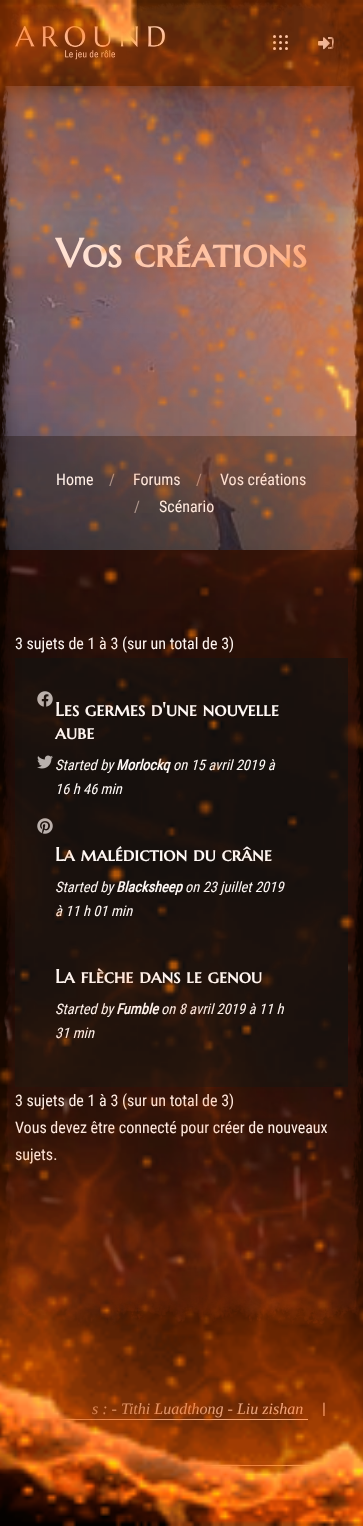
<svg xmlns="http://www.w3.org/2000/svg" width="363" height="1526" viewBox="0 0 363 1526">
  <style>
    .t1 { font: 16px Roboto Condensed; fill: #fff; }
    .t2 { font: bold 40px Marcellus SC; fill: #fff; }
    .t3 { font: 16px Roboto Condensed; fill: #a39d9d; }
    .t4 { font: bold 19.25px Marcellus SC; fill: #fff; }
    .t5 { font: italic 14.5px Roboto Condensed; fill: #fff; }
    .t6 { font: italic bold 14.5px Roboto Condensed; fill: #fff; }
    .t7 { font: italic 16px Liberation Serif; fill: #eee; }
    .t8 { font: 16px Roboto Condensed; fill: #eee; }
  </style>
  <defs>
    <linearGradient id="g1" gradientUnits="userSpaceOnUse" x1="162" y1="1420" x2="162" y2="1397"><stop offset="0" stop-color="#fff"/><stop offset="0.04" stop-color="#fff"/><stop offset="0.04" stop-color="#000"/><stop offset="1" stop-color="#000"/></linearGradient>
  </defs>
  <rect width="100%" height="100%" fill="#0e0e0e"/>
  <image x="0" y="86" width="363" height="464" href="images/7.png"/>
  <rect x="0" y="5" width="363" height="86" fill="#00000080" filter="blur(7.5px)"/>
  <rect x="0" y="3" width="361" height="83" fill="#0e0e0e"/>
  <image x="15" y="26" width="150" height="34" href="images/1.png"/>
  <circle cx="274.5" cy="36.5" r="1.5" fill="#fff"/>
  <circle cx="280.5" cy="36.5" r="1.5" fill="#fff"/>
  <circle cx="286.5" cy="36.5" r="1.5" fill="#fff"/>
  <circle cx="274.5" cy="42.5" r="1.5" fill="#fff"/>
  <circle cx="280.5" cy="42.5" r="1.5" fill="#fff"/>
  <circle cx="286.5" cy="42.5" r="1.5" fill="#fff"/>
  <circle cx="274.5" cy="48.5" r="1.5" fill="#fff"/>
  <circle cx="280.5" cy="48.5" r="1.5" fill="#fff"/>
  <circle cx="286.5" cy="48.5" r="1.5" fill="#fff"/>
  <image x="318" y="37" width="16" height="13" href="images/2.png"/>
  <rect x="0" y="436" width="362" height="114" fill="#0e0e0e66"/>
  <image x="0" y="550" width="363" height="778" href="images/9.png"/>
  <rect x="15" y="658" width="333" height="429" fill="#0e0e0e"/>
  <rect x="0" y="1335" width="363" height="191" fill="#000"/>
  <image x="0" y="1284" width="363" height="51" href="images/8.png"/>
  <rect x="27" y="1419" width="281" height="1" fill="url(#g1)"/>
  <rect x="-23" y="-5" width="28" height="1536" fill="#00000080" filter="blur(7.5px)"/>
  <image x="0" y="0" width="363" height="35" href="images/3.png"/>
  <text x="15" y="649" class="t1">3 sujets de 1 à 3 (sur un total de 3)</text>
  <text x="15" y="1106" class="t1">3 sujets de 1 à 3 (sur un total de 3)</text>
  <text x="15" y="1133" class="t1">Vous devez être connecté pour créer de nouveaux</text>
  <text x="15" y="1160" class="t1">sujets.</text>
  <image x="0" y="20" width="20" height="1374" href="images/4.png"/>
  <image x="322" y="2" width="41" height="1311" href="images/5.png"/>
  <text x="56" y="267" class="t2">Vos créations</text>
  <text x="56" y="485" class="t1">Home</text>
  <text x="109" y="485" class="t3">/</text>
  <text x="133" y="485" class="t1">Forums</text>
  <text x="196" y="485" class="t3">/</text>
  <text x="220" y="485" class="t1">Vos créations</text>
  <text x="134" y="512" class="t3">/</text>
  <text x="159" y="512" class="t1">Scénario</text>
  <text x="55" y="716" class="t4">Les germes d'une nouvelle</text>
  <text x="55" y="739" class="t4">aube</text>
  <text x="55" y="770" class="t5">Started by</text>
  <text x="116" y="770" class="t6">Morlockq</text>
  <text x="173" y="770" class="t5">on 15 avril 2019 à</text>
  <text x="55" y="794" class="t5">16 h 46 min</text>
  <text x="55" y="861" class="t4">La malédiction du crâne</text>
  <text x="55" y="892" class="t5">Started by</text>
  <text x="116" y="892" class="t6">Blacksheep</text>
  <text x="185" y="892" class="t5">on 23 juillet 2019</text>
  <text x="55" y="916" class="t5">à 11 h 01 min</text>
  <text x="55" y="983" class="t4">La flèche dans le genou</text>
  <text x="55" y="1014" class="t5">Started by</text>
  <text x="116" y="1014" class="t6">Fumble</text>
  <text x="161" y="1014" class="t5">on 8 avril 2019 à 11 h</text>
  <text x="55" y="1038" class="t5">31 min</text>
  <text x="92" y="1414" class="t7">s : - Tithi Luadthong - Liu zishan</text>
  <text x="322" y="1414" class="t8">|</text>
  <image x="37" y="691" width="16" height="16" href="images/10.png"/>
  <image x="37" y="755" width="16" height="14" href="images/11.png"/>
  <image x="37" y="818" width="16" height="16" href="images/12.png"/>
  <rect x="172" y="1461" width="152" height="17" fill="#0d0d0d"/>
  <rect x="153.5" y="1465.5" width="180" height="36" fill="none" stroke="#fff"/>
  <image x="0" y="0" width="363" height="1526" href="images/6.png"/>
</svg>
